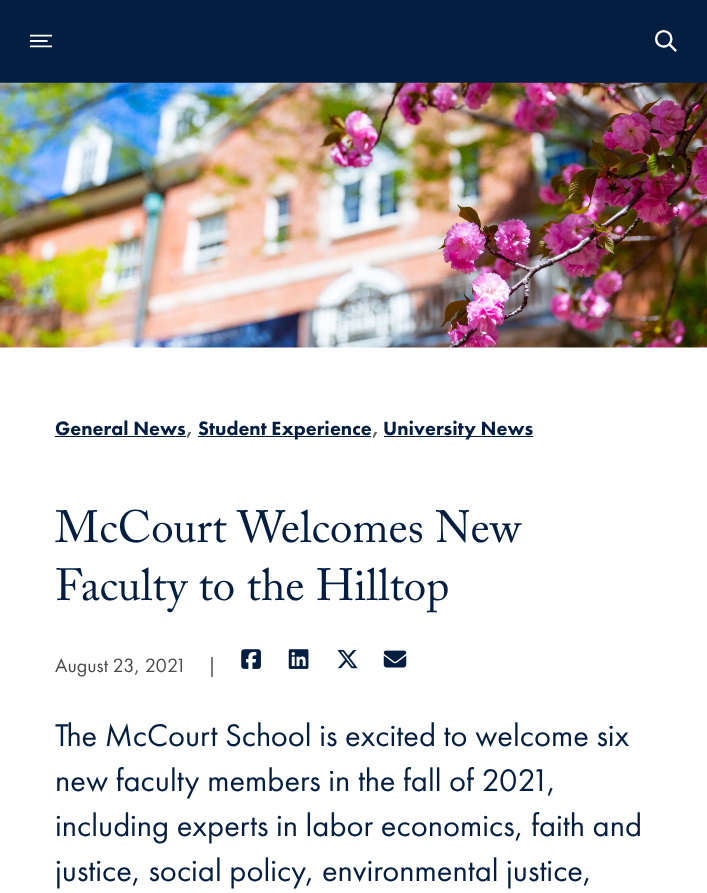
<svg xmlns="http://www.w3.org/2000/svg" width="707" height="893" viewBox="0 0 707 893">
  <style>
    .t1 { font: 900 20px Futura PT; fill: #041e42; }
    .t2 { font: 900 20px Futura PT; fill: #63666a; }
    .t3 { font: 45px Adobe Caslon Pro; fill: #041e42; }
    .t4 { font: 20px Futura PT; fill: #4a4a4a; }
    .t5 { font: 32.5px Futura PT; fill: #041e42; }
  </style>
  <rect width="100%" height="100%" fill="#fff"/>
  <rect x="0" y="0" width="707" height="83" fill="#041e42"/>
  <image x="30" y="34" width="22" height="14" href="images/1.png"/>
  <image x="655" y="30" width="22" height="22" href="images/2.png"/>
  <image x="0" y="82" width="707" height="266" href="images/3.png"/>
  <text x="55" y="435" class="t1">General News</text>
  <text x="186" y="435" class="t2">,</text>
  <rect x="55" y="436" width="131" height="1" fill="#041e42"/>
  <rect x="198" y="436" width="173" height="1" fill="#041e42"/>
  <text x="198" y="435" class="t1">Student Experience</text>
  <text x="372" y="435" class="t2">,</text>
  <rect x="384" y="436" width="149" height="1" fill="#041e42"/>
  <text x="383" y="435" class="t1">University News</text>
  <text x="55" y="542" class="t3">McCourt Welcomes New</text>
  <text x="55" y="600" class="t3">Faculty to the Hilltop</text>
  <text x="55" y="672" class="t4">August 23, 2021</text>
  <text x="207" y="672" class="t4">|</text>
  <image x="241" y="649" width="20" height="20" href="images/4.png"/>
  <image x="288" y="649" width="21" height="20" href="images/5.png"/>
  <image x="337" y="649" width="21" height="20" href="images/6.png"/>
  <image x="383" y="650" width="24" height="18" href="images/7.png"/>
  <text x="55" y="746" class="t5">The McCourt School is excited to welcome six</text>
  <text x="55" y="791" class="t5">new faculty members in the fall of 2021,</text>
  <text x="55" y="836" class="t5">including experts in labor economics, faith and</text>
  <text x="55" y="881" class="t5">justice, social policy, environmental justice,</text>
</svg>
